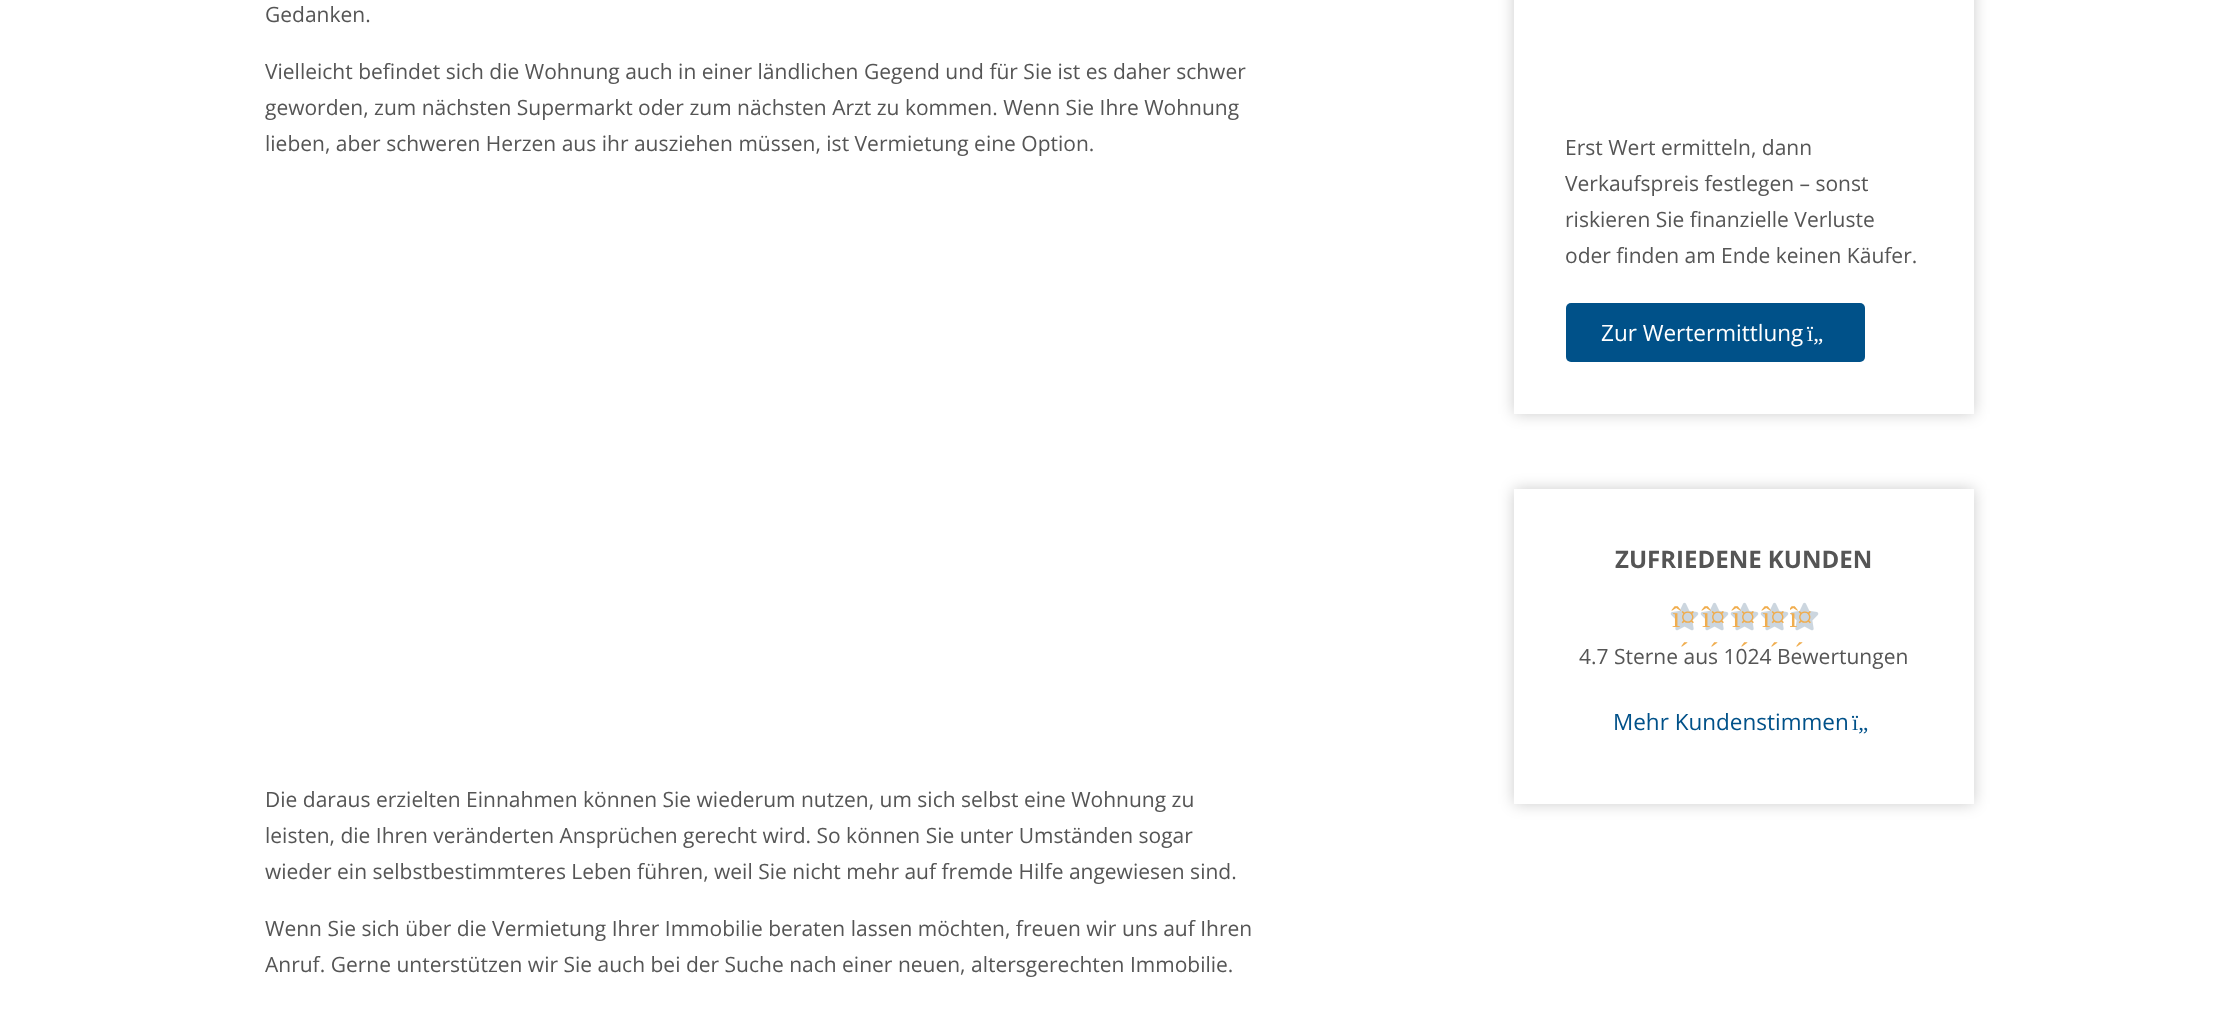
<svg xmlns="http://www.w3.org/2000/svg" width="2239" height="1009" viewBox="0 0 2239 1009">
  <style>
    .t1 { font: 21px Open Sans; fill: #555; }
    .t2 { font: 22.5px Open Sans; fill: #fff; }
    .t3 { font: 22.5px Liberation Serif; fill: #fff; }
    .t4 { font: bold 24px Open Sans; fill: #555; }
    .t5 { font: 30px Liberation Serif; fill: #f0ad4e; }
    .t6 { font: 22.5px Open Sans; fill: #005189; }
    .t7 { font: 22.5px Liberation Serif; fill: #005189; }
  </style>
  <defs>
    <clipPath id="clip1"><path d="M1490 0H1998V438H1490ZM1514-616H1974V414H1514Z" clip-rule="evenodd"/></clipPath>
    <clipPath id="clip2"><path d="M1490 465H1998V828H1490ZM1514 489H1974V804H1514Z" clip-rule="evenodd"/></clipPath>
    <clipPath id="clip3"><rect x="1790" y="599" width="21" height="72"/></clipPath>
  </defs>
  <rect width="100%" height="100%" fill="#fff"/>
  <text x="265" y="22" class="t1">Gedanken.</text>
  <text x="265" y="79" class="t1">Vielleicht befindet sich die Wohnung auch in einer ländlichen Gegend und für Sie ist es daher schwer</text>
  <text x="265" y="115" class="t1">geworden, zum nächsten Supermarkt oder zum nächsten Arzt zu kommen. Wenn Sie Ihre Wohnung</text>
  <text x="265" y="151" class="t1">lieben, aber schweren Herzen aus ihr ausziehen müssen, ist Vermietung eine Option.</text>
  <text x="265" y="807" class="t1">Die daraus erzielten Einnahmen können Sie wiederum nutzen, um sich selbst eine Wohnung zu</text>
  <text x="265" y="843" class="t1">leisten, die Ihren veränderten Ansprüchen gerecht wird. So können Sie unter Umständen sogar</text>
  <text x="265" y="879" class="t1">wieder ein selbstbestimmteres Leben führen, weil Sie nicht mehr auf fremde Hilfe angewiesen sind.</text>
  <text x="265" y="936" class="t1">Wenn Sie sich über die Vermietung Ihrer Immobilie beraten lassen möchten, freuen wir uns auf Ihren</text>
  <text x="265" y="972" class="t1">Anruf. Gerne unterstützen wir Sie auch bei der Suche nach einer neuen, altersgerechten Immobilie.</text>
  <g clip-path="url(#clip1)">
    <rect x="1514" y="-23" width="460" height="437" fill="#00000033" filter="blur(7.5px)"/>
  </g>
  <text x="1565" y="155" class="t1">Erst Wert ermitteln, dann</text>
  <text x="1565" y="191" class="t1">Verkaufspreis festlegen – sonst</text>
  <text x="1565" y="227" class="t1">riskieren Sie finanzielle Verluste</text>
  <text x="1565" y="263" class="t1">oder finden am Ende keinen Käufer.</text>
  <rect x="1566" y="303" width="299" height="59" rx="5" fill="#005189"/>
  <text x="1601" y="341" class="t2">Zur Wertermittlung</text>
  <text x="1807" y="341" class="t3">ï„</text>
  <g clip-path="url(#clip2)">
    <rect x="1514" y="489" width="460" height="315" fill="#00000033" filter="blur(7.5px)"/>
  </g>
  <text x="1615" y="568" class="t4">ZUFRIEDENE KUNDEN</text>
  <image x="1670" y="602" width="29" height="29" href="images/1.png"/>
  <text x="1672" y="627" class="t5">î¤</text>
  <text x="1679" y="663" class="t5">´</text>
  <image x="1700" y="602" width="29" height="29" href="images/1.png"/>
  <text x="1702" y="627" class="t5">î¤</text>
  <text x="1709" y="663" class="t5">´</text>
  <image x="1730" y="602" width="29" height="29" href="images/1.png"/>
  <text x="1732" y="627" class="t5">î¤</text>
  <text x="1739" y="663" class="t5">´</text>
  <image x="1760" y="602" width="29" height="29" href="images/1.png"/>
  <text x="1762" y="627" class="t5">î¤</text>
  <text x="1769" y="663" class="t5">´</text>
  <image x="1790" y="602" width="29" height="29" href="images/1.png"/>
  <g clip-path="url(#clip3)">
    <text x="1789" y="627" class="t5">î¤</text>
  </g>
  <text x="1794" y="663" class="t5">´</text>
  <text x="1579" y="664" class="t1">4.7 Sterne aus 1024 Bewertungen</text>
  <text x="1613" y="730" class="t6">Mehr Kundenstimmen</text>
  <text x="1852" y="730" class="t7">ï„</text>
</svg>
